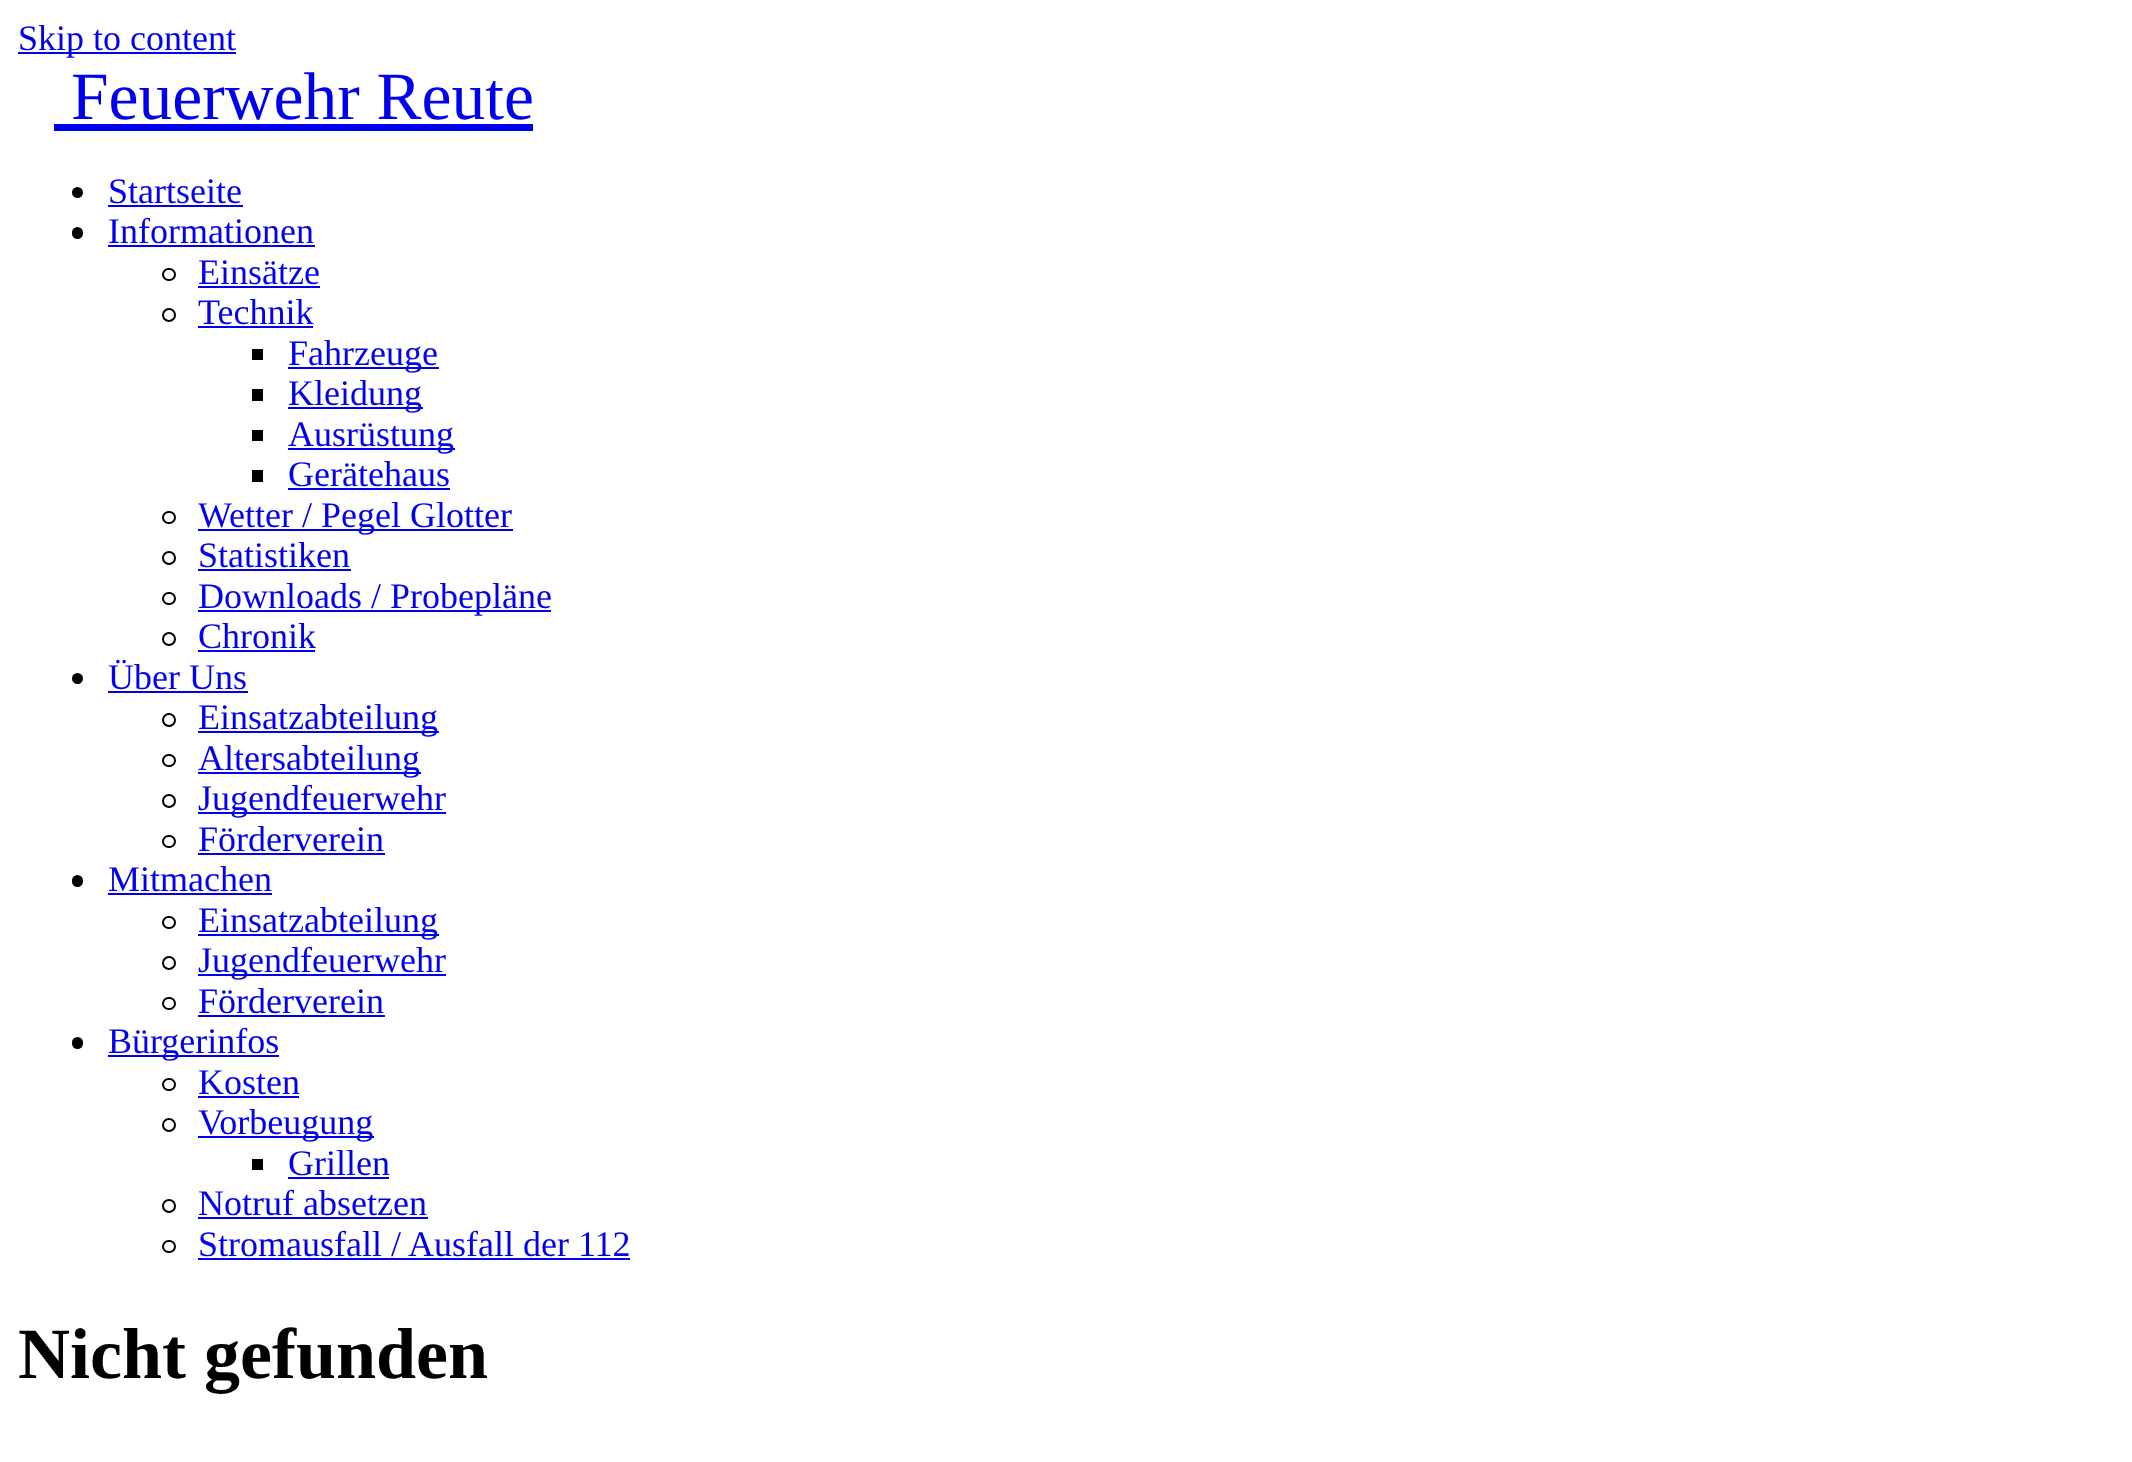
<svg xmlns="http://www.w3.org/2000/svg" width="2132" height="1462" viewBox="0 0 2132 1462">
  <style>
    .t1 { font: 36px Liberation Serif; fill: #00e; }
    .t2 { font: 67.5px Liberation Serif; fill: #00e; }
    .t3 { font: bold 72px Liberation Serif; fill: #000; }
  </style>
  <rect width="100%" height="100%" fill="#fff"/>
  <rect x="18" y="52" width="218" height="2" fill="#00e"/>
  <text x="18" y="50" class="t1">Skip to content</text>
  <text x="71" y="119" class="t2">Feuerwehr Reute</text>
  <rect x="54" y="124" width="479" height="7" fill="#00e"/>
  <circle cx="77.5" cy="192.5" r="5.5" fill="#000"/>
  <text x="108" y="203" class="t1">Startseite</text>
  <rect x="108" y="205" width="135" height="2" fill="#00e"/>
  <rect x="72" y="227" width="11" height="12" rx="5.5" fill="#000"/>
  <text x="108" y="243" class="t1">Informationen</text>
  <rect x="108" y="245" width="207" height="2" fill="#00e"/>
  <rect x="163" y="269" width="12" height="11" rx="5.5" fill="none" stroke="#000" stroke-width="2"/>
  <text x="198" y="284" class="t1">Einsätze</text>
  <rect x="198" y="286" width="122" height="2" fill="#00e"/>
  <circle cx="169" cy="315" r="6" fill="none" stroke="#000" stroke-width="2"/>
  <text x="198" y="324" class="t1">Technik</text>
  <rect x="198" y="326" width="115" height="2" fill="#00e"/>
  <rect x="252" y="349" width="11" height="11" fill="#000"/>
  <rect x="288" y="367" width="151" height="2" fill="#00e"/>
  <text x="288" y="365" class="t1">Fahrzeuge</text>
  <rect x="252" y="389" width="11" height="12" fill="#000"/>
  <rect x="288" y="407" width="135" height="2" fill="#00e"/>
  <text x="288" y="405" class="t1">Kleidung</text>
  <rect x="252" y="430" width="11" height="11" fill="#000"/>
  <rect x="288" y="448" width="167" height="2" fill="#00e"/>
  <text x="288" y="446" class="t1">Ausrüstung</text>
  <rect x="252" y="470" width="11" height="12" fill="#000"/>
  <text x="288" y="486" class="t1">Gerätehaus</text>
  <rect x="288" y="488" width="162" height="2" fill="#00e"/>
  <rect x="163" y="512" width="12" height="11" rx="5.5" fill="none" stroke="#000" stroke-width="2"/>
  <rect x="198" y="529" width="315" height="2" fill="#00e"/>
  <text x="198" y="527" class="t1">Wetter / Pegel Glotter</text>
  <circle cx="169" cy="558" r="6" fill="none" stroke="#000" stroke-width="2"/>
  <text x="198" y="567" class="t1">Statistiken</text>
  <rect x="198" y="569" width="153" height="2" fill="#00e"/>
  <rect x="163" y="593" width="12" height="11" rx="5.5" fill="none" stroke="#000" stroke-width="2"/>
  <rect x="198" y="610" width="353" height="2" fill="#00e"/>
  <text x="198" y="608" class="t1">Downloads / Probepläne</text>
  <circle cx="169" cy="639" r="6" fill="none" stroke="#000" stroke-width="2"/>
  <text x="198" y="648" class="t1">Chronik</text>
  <rect x="198" y="650" width="117" height="2" fill="#00e"/>
  <circle cx="77.5" cy="678.5" r="5.5" fill="#000"/>
  <text x="108" y="689" class="t1">Über Uns</text>
  <rect x="108" y="691" width="140" height="2" fill="#00e"/>
  <circle cx="169" cy="720" r="6" fill="none" stroke="#000" stroke-width="2"/>
  <rect x="198" y="731" width="241" height="2" fill="#00e"/>
  <text x="198" y="729" class="t1">Einsatzabteilung</text>
  <rect x="163" y="755" width="12" height="11" rx="5.5" fill="none" stroke="#000" stroke-width="2"/>
  <rect x="198" y="772" width="223" height="2" fill="#00e"/>
  <text x="198" y="770" class="t1">Altersabteilung</text>
  <circle cx="169" cy="801" r="6" fill="none" stroke="#000" stroke-width="2"/>
  <rect x="198" y="812" width="248" height="2" fill="#00e"/>
  <text x="198" y="810" class="t1">Jugendfeuerwehr</text>
  <rect x="163" y="836" width="12" height="11" rx="5.5" fill="none" stroke="#000" stroke-width="2"/>
  <text x="198" y="851" class="t1">Förderverein</text>
  <rect x="198" y="853" width="187" height="2" fill="#00e"/>
  <rect x="72" y="875" width="11" height="12" rx="5.5" fill="#000"/>
  <text x="108" y="891" class="t1">Mitmachen</text>
  <rect x="108" y="893" width="164" height="2" fill="#00e"/>
  <rect x="163" y="917" width="12" height="11" rx="5.5" fill="none" stroke="#000" stroke-width="2"/>
  <rect x="198" y="934" width="241" height="2" fill="#00e"/>
  <text x="198" y="932" class="t1">Einsatzabteilung</text>
  <circle cx="169" cy="963" r="6" fill="none" stroke="#000" stroke-width="2"/>
  <rect x="198" y="974" width="248" height="2" fill="#00e"/>
  <text x="198" y="972" class="t1">Jugendfeuerwehr</text>
  <rect x="163" y="998" width="12" height="11" rx="5.5" fill="none" stroke="#000" stroke-width="2"/>
  <text x="198" y="1013" class="t1">Förderverein</text>
  <rect x="198" y="1015" width="187" height="2" fill="#00e"/>
  <rect x="72" y="1037" width="11" height="12" rx="5.5" fill="#000"/>
  <rect x="108" y="1055" width="171" height="2" fill="#00e"/>
  <text x="108" y="1053" class="t1">Bürgerinfos</text>
  <rect x="163" y="1079" width="12" height="11" rx="5.5" fill="none" stroke="#000" stroke-width="2"/>
  <text x="198" y="1094" class="t1">Kosten</text>
  <rect x="198" y="1096" width="101" height="2" fill="#00e"/>
  <circle cx="169" cy="1125" r="6" fill="none" stroke="#000" stroke-width="2"/>
  <rect x="198" y="1136" width="176" height="2" fill="#00e"/>
  <text x="198" y="1134" class="t1">Vorbeugung</text>
  <rect x="252" y="1159" width="11" height="11" fill="#000"/>
  <text x="288" y="1175" class="t1">Grillen</text>
  <rect x="288" y="1177" width="101" height="2" fill="#00e"/>
  <circle cx="169" cy="1206" r="6" fill="none" stroke="#000" stroke-width="2"/>
  <text x="198" y="1215" class="t1">Notruf absetzen</text>
  <rect x="198" y="1217" width="230" height="2" fill="#00e"/>
  <rect x="163" y="1241" width="12" height="11" rx="5.5" fill="none" stroke="#000" stroke-width="2"/>
  <text x="198" y="1256" class="t1">Stromausfall / Ausfall der 112</text>
  <rect x="198" y="1258" width="432" height="2" fill="#00e"/>
  <text x="18" y="1378" class="t3">Nicht gefunden</text>
</svg>
